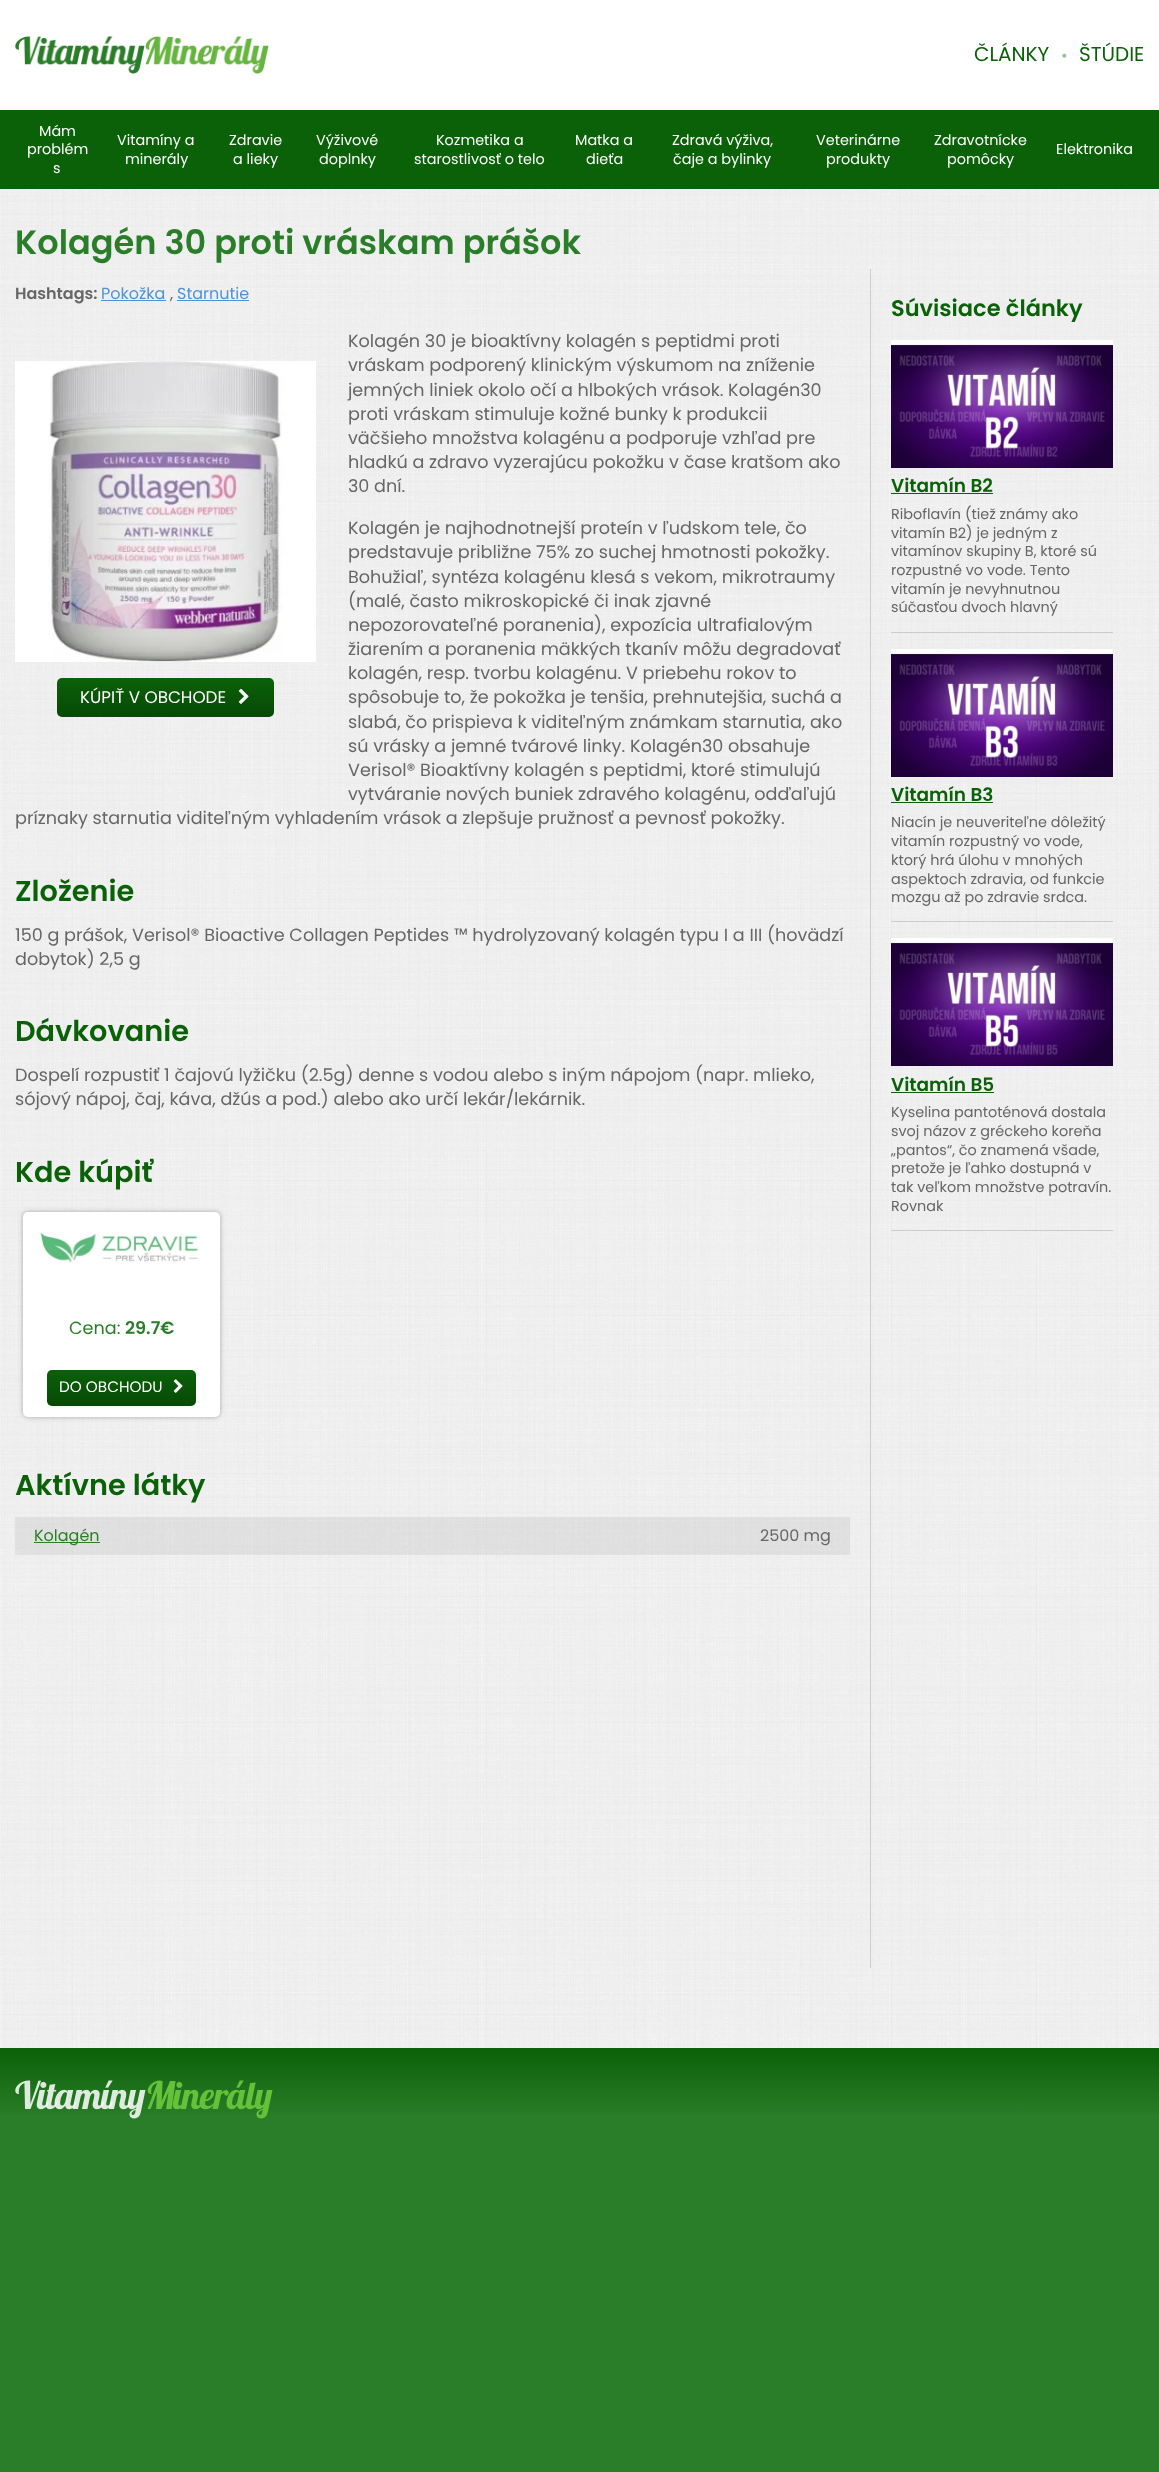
<svg xmlns="http://www.w3.org/2000/svg" width="1159" height="2472" viewBox="0 0 1159 2472">
  <style>
    .t1 { font: 20px Poppins; fill: #0a6108; }
    .t2 { font: 16px Poppins; fill: #95bf94; }
    .t3 { font: 14.4px Poppins; fill: #fff; }
    .t4 { font: 600 33.6px Poppins; fill: #2b7e29; }
    .t5 { font: 600 16px Poppins; fill: #666; }
    .t6 { font: 16px Poppins; fill: #4e93d8; }
    .t7 { font: 16px Poppins; fill: #666; }
    .t8 { font: 17.6px Poppins; fill: #666; }
    .t9 { font: 600 28.75px Poppins; fill: #0a6108; }
    .t10 { font: 16.75px Poppins; fill: #fff; }
    .t11 { font: 17.6px Poppins; fill: #2b7e29; }
    .t12 { font: 600 17.6px Poppins; fill: #2b7e29; }
    .t13 { font: 15.25px Poppins; fill: #fff; }
    .t14 { font: 16px Poppins; fill: #2b7e29; }
    .t15 { font: 600 22.5px Poppins; fill: #0a6108; }
    .t16 { font: 600 18.5px Poppins; fill: #0a6108; }
    .t17 { font: 14.4px Poppins; fill: #666; }
  </style>
  <defs>
    <linearGradient id="g1" gradientUnits="userSpaceOnUse" x1="166" y1="678" x2="166" y2="717"><stop offset="0" stop-color="#0a6108"/><stop offset="1" stop-color="#084906"/></linearGradient>
    <linearGradient id="g2" gradientUnits="userSpaceOnUse" x1="122" y1="1370" x2="122" y2="1406"><stop offset="0" stop-color="#0a6108"/><stop offset="1" stop-color="#084906"/></linearGradient>
    <linearGradient id="g3" gradientUnits="userSpaceOnUse" x1="580" y1="2048" x2="580" y2="2119"><stop offset="0" stop-color="#0a6108"/><stop offset="1" stop-color="#2b7e29"/></linearGradient>
  </defs>
  <rect width="100%" height="100%" fill="#2b7e29"/>
  <rect x="0" y="0" width="1159" height="2048" fill="#fff"/>
  <image x="15" y="36" width="254" height="38" href="images/1.png"/>
  <text x="974" y="61" class="t1">ČLÁNKY</text>
  <text x="1061" y="61" class="t2">•</text>
  <text x="1079" y="61" class="t1">ŠTÚDIE</text>
  <rect x="0" y="110" width="1159" height="79" fill="#0a6108"/>
  <text x="39" y="136" class="t3">Mám</text>
  <text x="27" y="154" class="t3">problém</text>
  <text x="53" y="173" class="t3">s</text>
  <text x="117" y="145" class="t3">Vitamíny a</text>
  <text x="125" y="164" class="t3">minerály</text>
  <text x="229" y="145" class="t3">Zdravie</text>
  <text x="233" y="164" class="t3">a lieky</text>
  <text x="316" y="145" class="t3">Výživové</text>
  <text x="319" y="164" class="t3">doplnky</text>
  <text x="436" y="145" class="t3">Kozmetika a</text>
  <text x="414" y="164" class="t3">starostlivosť o telo</text>
  <text x="575" y="145" class="t3">Matka a</text>
  <text x="586" y="164" class="t3">dieťa</text>
  <text x="672" y="145" class="t3">Zdravá výživa,</text>
  <text x="673" y="164" class="t3">čaje a bylinky</text>
  <text x="816" y="145" class="t3">Veterinárne</text>
  <text x="826" y="164" class="t3">produkty</text>
  <text x="934" y="145" class="t3">Zdravotnícke</text>
  <text x="947" y="164" class="t3">pomôcky</text>
  <text x="1056" y="154" class="t3">Elektronika</text>
  <image x="0" y="189" width="1159" height="1859" href="images/2.png"/>
  <text x="15" y="254" class="t4">Kolagén 30 proti vráskam prášok</text>
  <text x="15" y="299" class="t5">Hashtags:</text>
  <text x="101" y="299" class="t6">Pokožka</text>
  <rect x="101" y="300" width="65" height="1" fill="#4e93d8"/>
  <text x="170" y="299" class="t7">,</text>
  <text x="177" y="299" class="t6">Starnutie</text>
  <rect x="177" y="300" width="72" height="1" fill="#4e93d8"/>
  <text x="348" y="347" class="t8">Kolagén 30 je bioaktívny kolagén s peptidmi proti</text>
  <text x="348" y="371" class="t8">vráskam podporený klinickým výskumom na zníženie</text>
  <text x="348" y="396" class="t8">jemných liniek okolo očí a hlbokých vrások. Kolagén30</text>
  <text x="348" y="420" class="t8">proti vráskam stimuluje kožné bunky k produkcii</text>
  <text x="348" y="444" class="t8">väčšieho množstva kolagénu a podporuje vzhľad pre</text>
  <text x="348" y="468" class="t8">hladkú a zdravo vyzerajúcu pokožku v čase kratšom ako</text>
  <text x="348" y="492" class="t8">30 dní.</text>
  <text x="348" y="534" class="t8">Kolagén je najhodnotnejší proteín v ľudskom tele, čo</text>
  <text x="348" y="558" class="t8">predstavuje približne 75% zo suchej hmotnosti pokožky.</text>
  <text x="348" y="583" class="t8">Bohužiaľ, syntéza kolagénu klesá s vekom, mikrotraumy</text>
  <text x="348" y="607" class="t8">(malé, často mikroskopické či inak zjavné</text>
  <text x="348" y="631" class="t8">nepozorovateľné poranenia), expozícia ultrafialovým</text>
  <text x="348" y="655" class="t8">žiarením a poranenia mäkkých tkanív môžu degradovať</text>
  <text x="348" y="679" class="t8">kolagén, resp. tvorbu kolagénu. V priebehu rokov to</text>
  <text x="348" y="703" class="t8">spôsobuje to, že pokožka je tenšia, prehnutejšia, suchá a</text>
  <text x="348" y="728" class="t8">slabá, čo prispieva k viditeľným známkam starnutia, ako</text>
  <text x="348" y="752" class="t8">sú vrásky a jemné tvárové linky. Kolagén30 obsahuje</text>
  <text x="348" y="776" class="t8">Verisol® Bioaktívny kolagén s peptidmi, ktoré stimulujú</text>
  <text x="348" y="800" class="t8">vytváranie nových buniek zdravého kolagénu, odďaľujú</text>
  <text x="15" y="824" class="t8">príznaky starnutia viditeľným vyhladením vrások a zlepšuje pružnosť a pevnosť pokožky.</text>
  <text x="15" y="901" class="t9">Zloženie</text>
  <text x="15" y="941" class="t8">150 g prášok, Verisol® Bioactive Collagen Peptides ™ hydrolyzovaný kolagén typu I a III (hovädzí</text>
  <text x="15" y="965" class="t8">dobytok) 2,5 g</text>
  <text x="15" y="1041" class="t9">Dávkovanie</text>
  <text x="15" y="1081" class="t8">Dospelí rozpustiť 1 čajovú lyžičku (2.5g) denne s vodou alebo s iným nápojom (napr. mlieko,</text>
  <text x="15" y="1105" class="t8">sójový nápoj, čaj, káva, džús a pod.) alebo ako určí lekár/lekárnik.</text>
  <image x="15" y="361" width="301" height="301" href="images/3.png"/>
  <rect x="57" y="678" width="217" height="39" rx="5" fill="url(#g1)"/>
  <text x="80" y="703" class="t10">KÚPIŤ V OBCHODE</text>
  <image x="238" y="688" width="11" height="16" href="images/4.png"/>
  <text x="15" y="1182" class="t9">Kde kúpiť</text>
  <rect x="23" y="1212" width="197" height="205" rx="5" fill="#0000004d" filter="blur(2.5px)"/>
  <rect x="23" y="1212" width="197" height="205" rx="5" fill="#fff"/>
  <image x="38" y="1231" width="161" height="32" href="images/5.png"/>
  <text x="69" y="1334" class="t11">Cena:</text>
  <text x="125" y="1334" class="t12">29.7€</text>
  <rect x="47" y="1370" width="149" height="36" rx="5" fill="url(#g2)"/>
  <text x="59" y="1392" class="t13">DO OBCHODU</text>
  <image x="173" y="1379" width="10" height="14" href="images/6.png"/>
  <text x="15" y="1495" class="t9">Aktívne látky</text>
  <rect x="15" y="1517" width="835" height="38" fill="#6666661a"/>
  <rect x="34" y="1542" width="66" height="1" fill="#2b7e29"/>
  <text x="34" y="1541" class="t14">Kolagén</text>
  <text x="760" y="1541" class="t7">2500 mg</text>
  <rect x="870" y="269" width="1" height="1699" fill="#ccc"/>
  <text x="891" y="316" class="t15">Súvisiace články</text>
  <rect x="891" y="632" width="222" height="1" fill="#ccc"/>
  <image x="891" y="340" width="222" height="128" href="images/7.png"/>
  <text x="891" y="492" class="t16">Vitamín B2</text>
  <rect x="891" y="493" width="102" height="1" fill="#0a6108"/>
  <text x="891" y="519" class="t17">Riboflavín (tiež známy ako</text>
  <text x="891" y="538" class="t17">vitamín B2) je jedným z</text>
  <text x="891" y="556" class="t17">vitamínov skupiny B, ktoré sú</text>
  <text x="891" y="575" class="t17">rozpustné vo vode. Tento</text>
  <text x="891" y="594" class="t17">vitamín je nevyhnutnou</text>
  <text x="891" y="612" class="t17">súčasťou dvoch hlavný</text>
  <rect x="891" y="921" width="222" height="1" fill="#ccc"/>
  <image x="891" y="649" width="222" height="128" href="images/8.png"/>
  <text x="891" y="801" class="t16">Vitamín B3</text>
  <rect x="891" y="802" width="102" height="1" fill="#0a6108"/>
  <text x="891" y="827" class="t17">Niacín je neuveriteľne dôležitý</text>
  <text x="891" y="846" class="t17">vitamín rozpustný vo vode,</text>
  <text x="891" y="865" class="t17">ktorý hrá úlohu v mnohých</text>
  <text x="891" y="884" class="t17">aspektoch zdravia, od funkcie</text>
  <text x="891" y="902" class="t17">mozgu až po zdravie srdca.</text>
  <rect x="891" y="1230" width="222" height="1" fill="#ccc"/>
  <image x="891" y="938" width="222" height="128" href="images/9.png"/>
  <text x="891" y="1091" class="t16">Vitamín B5</text>
  <rect x="891" y="1092" width="103" height="1" fill="#0a6108"/>
  <text x="891" y="1117" class="t17">Kyselina pantoténová dostala</text>
  <text x="891" y="1136" class="t17">svoj názov z gréckeho koreňa</text>
  <text x="891" y="1155" class="t17">„pantos“, čo znamená všade,</text>
  <text x="891" y="1173" class="t17">pretože je ľahko dostupná v</text>
  <text x="891" y="1192" class="t17">tak veľkom množstve potravín.</text>
  <text x="891" y="1211" class="t17">Rovnak</text>
  <rect x="0" y="2048" width="1159" height="66" fill="url(#g3)"/>
  <image x="15" y="2080" width="258" height="39" href="images/10.png"/>
</svg>
